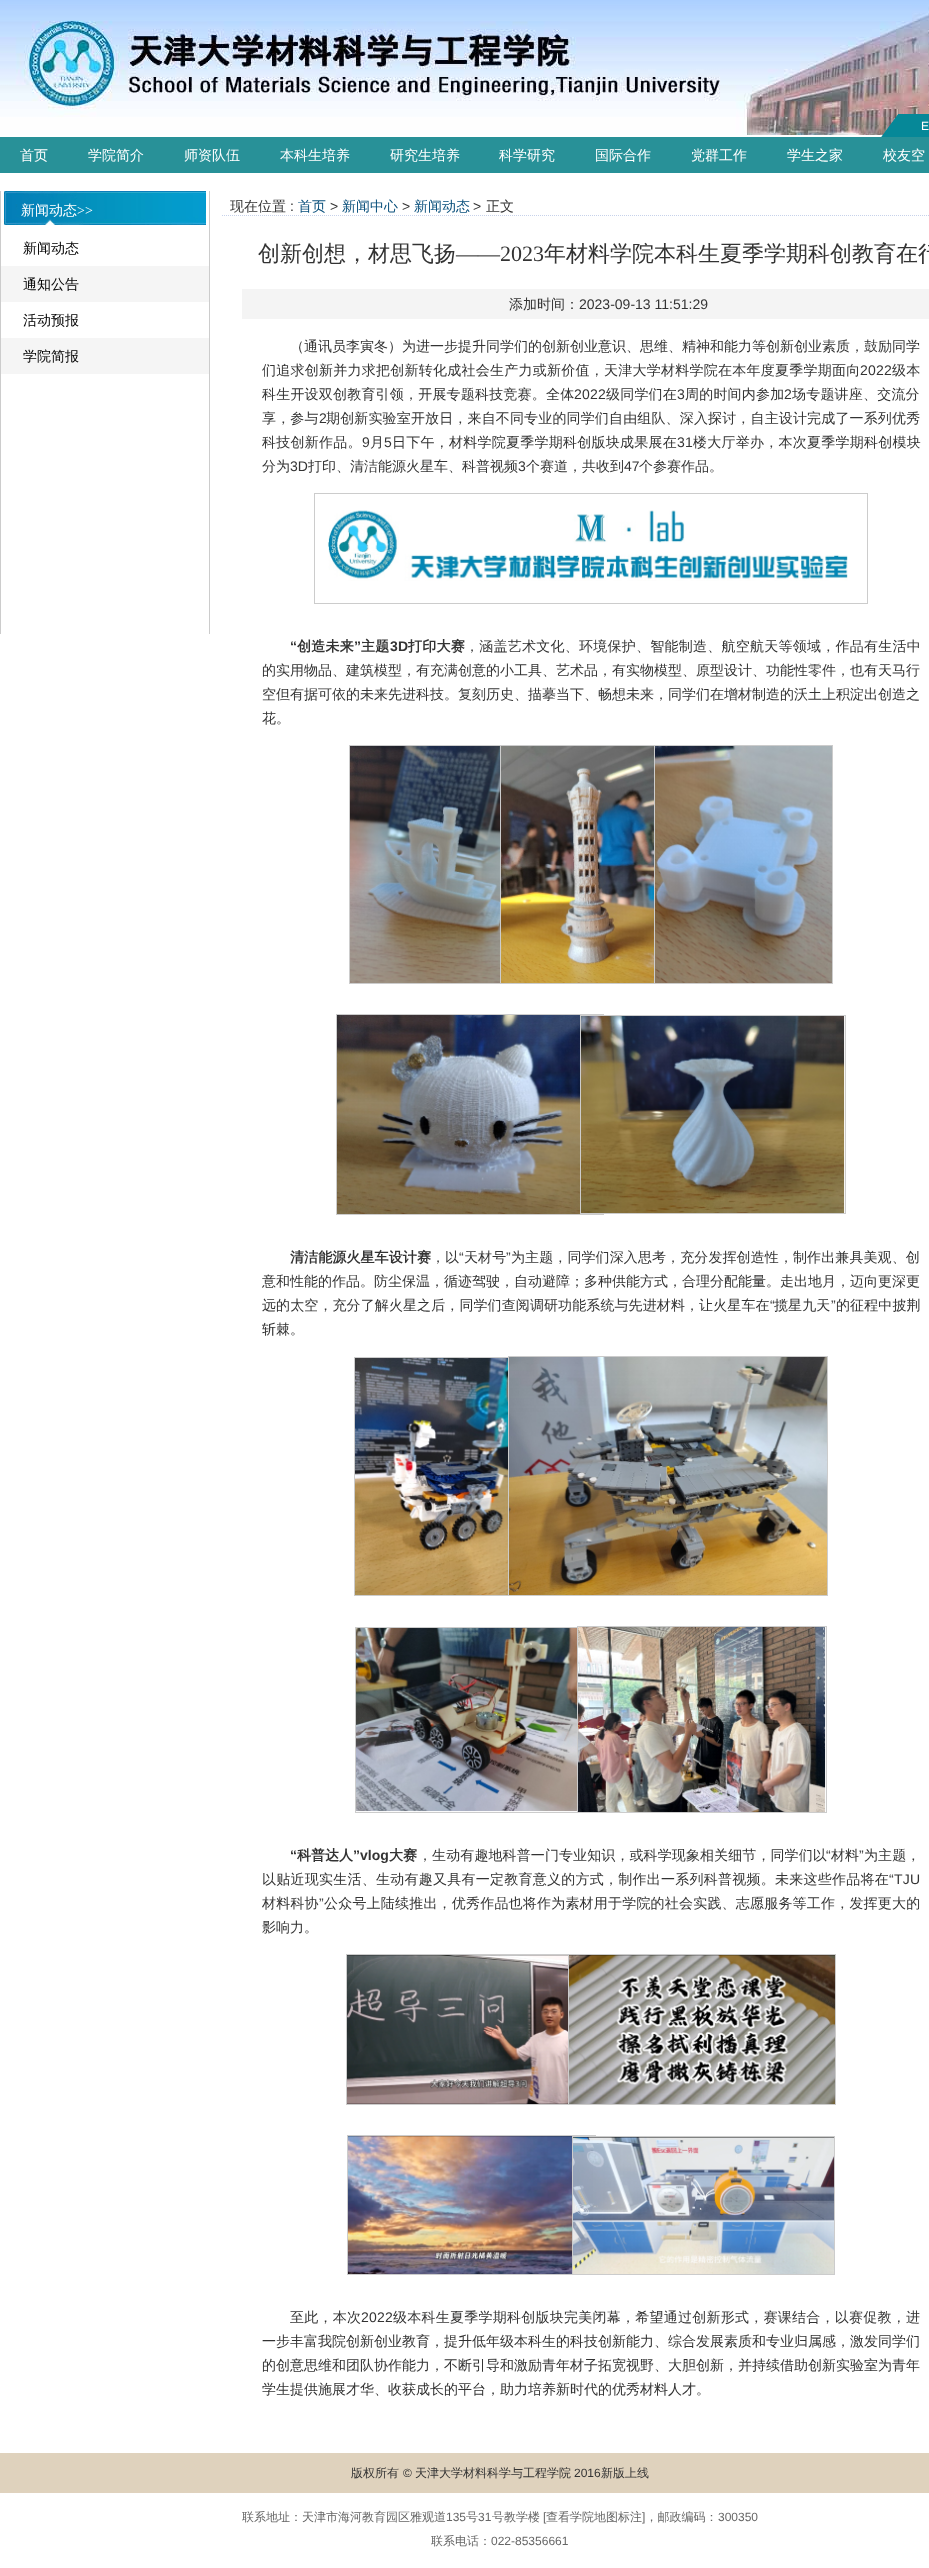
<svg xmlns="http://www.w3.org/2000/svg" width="929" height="2568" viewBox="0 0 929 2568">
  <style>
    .t1 { font: 12px Liberation Sans; fill: #fff; }
    .t2 { font: 500 14px WenQuanYi Zen Hei; fill: #fff; }
    .t3 { font: 14px Liberation Serif; fill: #fff; }
    .t4 { font: 500 14px WenQuanYi Zen Hei; fill: #000; }
    .t5 { font: 500 14px WenQuanYi Zen Hei; fill: #333; }
    .t6 { font: 14px Liberation Sans; fill: #333; }
    .t7 { font: 500 14px WenQuanYi Zen Hei; fill: #0a507c; }
    .t8 { font: 500 22px WenQuanYi Zen Hei; fill: #333; }
    .t9 { font: 22px Liberation Serif; fill: #333; }
    .t10 { font: 500 14px WenQuanYi Zen Hei; letter-spacing: 0.25px; fill: #333; }
    .t11 { font: 14px Liberation Sans; letter-spacing: 0.25px; fill: #333; }
    .t12 { font: 500 14px WenQuanYi Zen Hei; letter-spacing: 0.2px; fill: #333; }
    .t13 { font: 14px Liberation Sans; letter-spacing: 0.2px; fill: #333; }
    .t14 { font: 500 14px WenQuanYi Zen Hei; letter-spacing: 0.15px; fill: #333; }
    .t15 { font: 14px Liberation Sans; letter-spacing: 0.15px; fill: #333; }
    .t16 { font: bold 14px Liberation Sans; letter-spacing: 0.25px; fill: #333; }
    .t17 { font: bold 14px WenQuanYi Zen Hei; letter-spacing: 0.25px; fill: #333; }
    .t18 { font: bold 14px WenQuanYi Zen Hei; letter-spacing: 0.1px; fill: #333; }
    .t19 { font: 500 14px WenQuanYi Zen Hei; letter-spacing: 0.1px; fill: #333; }
    .t20 { font: 14px Liberation Sans; letter-spacing: 0.1px; fill: #333; }
    .t21 { font: bold 14px Liberation Sans; fill: #333; }
    .t22 { font: bold 14px WenQuanYi Zen Hei; fill: #333; }
    .t23 { font: 500 12px WenQuanYi Zen Hei; fill: #333; }
    .t24 { font: 12px Liberation Sans; fill: #333; }
    .t25 { font: 500 12px WenQuanYi Zen Hei; fill: #666; }
    .t26 { font: 12px Liberation Sans; fill: #666; }
  </style>
  <rect width="100%" height="100%" fill="#fff"/>
  <image x="0" y="0" width="929" height="135" href="images/1.png"/>
  <image x="881" y="114" width="48" height="23" href="images/2.png"/>
  <text x="921" y="130" class="t1">E</text>
  <rect x="0" y="137" width="929" height="36" fill="#289198"/>
  <text x="20" y="160" class="t2">首页</text>
  <text x="88" y="160" class="t2">学院简介</text>
  <text x="184" y="160" class="t2">师资队伍</text>
  <text x="280" y="160" class="t2">本科生培养</text>
  <text x="390" y="160" class="t2">研究生培养</text>
  <text x="499" y="160" class="t2">科学研究</text>
  <text x="595" y="160" class="t2">国际合作</text>
  <text x="691" y="160" class="t2">党群工作</text>
  <text x="787" y="160" class="t2">学生之家</text>
  <text x="883" y="160" class="t2">校友空</text>
  <rect x="209" y="191" width="1" height="443" fill="#ccc"/>
  <rect x="0" y="191" width="1" height="443" fill="#ccc"/>
  <image x="1" y="191" width="205" height="34" href="images/3.png"/>
  <text x="21" y="215" class="t2">新闻动态</text>
  <text x="77" y="215" class="t3">&gt;&gt;</text>
  <text x="23" y="253" class="t4">新闻动态</text>
  <rect x="1" y="266" width="208" height="36" fill="#f5f5f5"/>
  <text x="23" y="289" class="t4">通知公告</text>
  <text x="23" y="325" class="t4">活动预报</text>
  <rect x="1" y="338" width="208" height="36" fill="#f5f5f5"/>
  <text x="23" y="361" class="t4">学院简报</text>
  <path d="M222 215.5H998" fill="none" stroke="#c7d2eb" stroke-dasharray="1 1"/>
  <text x="230" y="211" class="t5">现在位置</text>
  <text x="290" y="211" class="t6">:</text>
  <text x="298" y="211" class="t7">首页</text>
  <text x="330" y="211" class="t6">&gt;</text>
  <text x="342" y="211" class="t7">新闻中心</text>
  <text x="402" y="211" class="t6">&gt;</text>
  <text x="414" y="211" class="t7">新闻动态</text>
  <text x="473" y="211" class="t6">&gt;</text>
  <text x="486" y="211" class="t5">正文</text>
  <text x="258" y="261" class="t8">创新创想，材思飞扬</text>
  <text x="456" y="261" class="t9">——2023</text>
  <text x="544" y="261" class="t8">年材料学院本科生夏季学期科创教育在行</text>
  <rect x="242" y="289" width="687" height="30" fill="#f4f4f4"/>
  <text x="509" y="309" class="t5">添加时间：</text>
  <text x="579" y="309" class="t6">2023-09-13 11:51:29</text>
  <text x="290" y="351" class="t5">（通讯员李寅冬）为进一步提升同学们的创新创业意识、思维、精神和能力等创新创业素质，鼓励同学</text>
  <text x="262" y="375" class="t10">们追求创新并力求把创新转化成社会生产力或新价值，天津大学材料学院在本年度夏季学期面向</text>
  <text x="860" y="375" class="t11">2022</text>
  <text x="892" y="375" class="t10">级本</text>
  <text x="262" y="399" class="t12">科生开设双创教育引领，开展专题科技竞赛。全体</text>
  <text x="574" y="399" class="t13">2022</text>
  <text x="606" y="399" class="t12">级同学们在</text>
  <text x="677" y="399" class="t13">3</text>
  <text x="685" y="399" class="t12">周的时间内参加</text>
  <text x="784" y="399" class="t13">2</text>
  <text x="792" y="399" class="t12">场专题讲座、交流分</text>
  <text x="262" y="423" class="t14">享，参与</text>
  <text x="319" y="423" class="t15">2</text>
  <text x="326" y="423" class="t14">期创新实验室开放日，来自不同专业的同学们自由组队、深入探讨，自主设计完成了一系列优秀</text>
  <text x="262" y="447" class="t10">科技创新作品。</text>
  <text x="362" y="447" class="t11">9</text>
  <text x="370" y="447" class="t10">月</text>
  <text x="384" y="447" class="t11">5</text>
  <text x="392" y="447" class="t10">日下午，材料学院夏季学期科创版块成果展在</text>
  <text x="677" y="447" class="t11">31</text>
  <text x="693" y="447" class="t10">楼大厅举办，本次夏季学期科创模块</text>
  <text x="262" y="471" class="t5">分为</text>
  <text x="290" y="471" class="t6">3D</text>
  <text x="308" y="471" class="t5">打印、清洁能源火星车、科普视频</text>
  <text x="518" y="471" class="t6">3</text>
  <text x="526" y="471" class="t5">个赛道，共收到</text>
  <text x="624" y="471" class="t6">47</text>
  <text x="639" y="471" class="t5">个参赛作品。</text>
  <rect x="314.5" y="493.5" width="553" height="110" fill="none" stroke="#ccc"/>
  <image x="327" y="510" width="521" height="71" href="images/4.png"/>
  <text x="290" y="651" class="t16">“</text>
  <text x="297" y="651" class="t17">创造未来</text>
  <text x="354" y="651" class="t16">”</text>
  <text x="361" y="651" class="t17">主题</text>
  <text x="390" y="651" class="t16">3D</text>
  <text x="408" y="651" class="t17">打印大赛</text>
  <text x="465" y="651" class="t10">，涵盖艺术文化、环境保护、智能制造、航空航天等领域，作品有生活中</text>
  <text x="262" y="675" class="t5">的实用物品、建筑模型，有充满创意的小工具、艺术品，有实物模型、原型设计、功能性零件，也有天马行</text>
  <text x="262" y="699" class="t5">空但有据可依的未来先进科技。复刻历史、描摹当下、畅想未来，同学们在增材制造的沃土上积淀出创造之</text>
  <text x="262" y="723" class="t5">花。</text>
  <rect x="349.5" y="745.5" width="178" height="238" fill="none" stroke="#ccc"/>
  <image x="350" y="746" width="168" height="237" href="images/5.png"/>
  <rect x="500.5" y="745.5" width="178" height="238" fill="none" stroke="#ccc"/>
  <image x="501" y="746" width="168" height="237" href="images/6.png"/>
  <rect x="654.5" y="745.5" width="178" height="238" fill="none" stroke="#ccc"/>
  <image x="655" y="746" width="177" height="237" href="images/7.png"/>
  <rect x="336.5" y="1014.5" width="267" height="200" fill="none" stroke="#ccc"/>
  <image x="337" y="1015" width="243" height="199" href="images/8.png"/>
  <rect x="580.5" y="1015.5" width="265" height="198" fill="none" stroke="#ccc"/>
  <image x="581" y="1016" width="264" height="197" href="images/9.png"/>
  <text x="290" y="1262" class="t18">清洁能源火星车设计赛</text>
  <text x="431" y="1262" class="t19">，以</text>
  <text x="459" y="1262" class="t20">“</text>
  <text x="464" y="1262" class="t19">天材号</text>
  <text x="506" y="1262" class="t20">”</text>
  <text x="511" y="1262" class="t19">为主题，同学们深入思考，充分发挥创造性，制作出兼具美观、创</text>
  <text x="262" y="1286" class="t5">意和性能的作品。防尘保温，循迹驾驶，自动避障；多种供能方式，合理分配能量。走出地月，迈向更深更</text>
  <text x="262" y="1310" class="t19">远的太空，充分了解火星之后，同学们查阅调研功能系统与先进材料，让火星车在</text>
  <text x="770" y="1310" class="t20">“</text>
  <text x="774" y="1310" class="t19">揽星九天</text>
  <text x="831" y="1310" class="t20">”</text>
  <text x="836" y="1310" class="t19">的征程中披荆</text>
  <text x="262" y="1334" class="t5">斩棘。</text>
  <rect x="354.5" y="1357.5" width="178" height="238" fill="none" stroke="#ccc"/>
  <rect x="508.5" y="1356.5" width="319" height="239" fill="none" stroke="#ccc"/>
  <image x="355" y="1358" width="153" height="237" href="images/10.png"/>
  <image x="509" y="1357" width="318" height="238" href="images/11.png"/>
  <rect x="355.5" y="1627.5" width="246" height="185" fill="none" stroke="#ccc"/>
  <rect x="577.5" y="1626.5" width="249" height="186" fill="none" stroke="#ccc"/>
  <image x="356" y="1628" width="221" height="184" href="images/12.png"/>
  <image x="578" y="1627" width="248" height="185" href="images/13.png"/>
  <text x="290" y="1860" class="t21">“</text>
  <text x="297" y="1860" class="t22">科普达人</text>
  <text x="353" y="1860" class="t21">”vlog</text>
  <text x="389" y="1860" class="t22">大赛</text>
  <text x="418" y="1860" class="t19">，生动有趣地科普一门专业知识，或科学现象相关细节，同学们以</text>
  <text x="826" y="1860" class="t20">“</text>
  <text x="831" y="1860" class="t19">材料</text>
  <text x="859" y="1860" class="t20">”</text>
  <text x="864" y="1860" class="t19">为主题，</text>
  <text x="262" y="1884" class="t10">以贴近现实生活、生动有趣又具有一定教育意义的方式，制作出一系列科普视频。未来这些作品将在</text>
  <text x="889" y="1884" class="t11">“TJU</text>
  <text x="262" y="1908" class="t12">材料科协</text>
  <text x="319" y="1908" class="t13">”</text>
  <text x="324" y="1908" class="t12">公众号上陆续推出，优秀作品也将作为素材用于学院的社会实践、志愿服务等工作，发挥更大的</text>
  <text x="262" y="1932" class="t5">影响力。</text>
  <rect x="346.5" y="1954.5" width="245" height="150" fill="none" stroke="#ccc"/>
  <image x="347" y="1955" width="243" height="149" href="images/14.png"/>
  <rect x="568.5" y="1954.5" width="267" height="150" fill="none" stroke="#ccc"/>
  <image x="569" y="1955" width="266" height="149" href="images/15.png"/>
  <rect x="347.5" y="2135.5" width="248" height="139" fill="none" stroke="#ccc"/>
  <image x="348" y="2136" width="245" height="138" href="images/16.png"/>
  <rect x="572.5" y="2136.5" width="262" height="138" fill="none" stroke="#ccc"/>
  <image x="573" y="2137" width="261" height="137" href="images/17.png"/>
  <text x="290" y="2322" class="t10">至此，本次</text>
  <text x="361" y="2322" class="t11">2022</text>
  <text x="393" y="2322" class="t10">级本科生夏季学期科创版块完美闭幕，希望通过创新形式，赛课结合，以赛促教，进</text>
  <text x="262" y="2346" class="t5">一步丰富我院创新创业教育，提升低年级本科生的科技创新能力、综合发展素质和专业归属感，激发同学们</text>
  <text x="262" y="2370" class="t5">的创意思维和团队协作能力，不断引导和激励青年材子拓宽视野、大胆创新，并持续借助创新实验室为青年</text>
  <text x="262" y="2394" class="t5">学生提供施展才华、收获成长的平台，助力培养新时代的优秀材料人才。</text>
  <rect x="0" y="2453" width="929" height="40" fill="#dfd2bd"/>
  <text x="351" y="2477" class="t23">版权所有</text>
  <text x="403" y="2477" class="t24">©</text>
  <text x="415" y="2477" class="t23">天津大学材料科学与工程学院</text>
  <text x="574" y="2477" class="t24">2016</text>
  <text x="601" y="2477" class="t23">新版上线</text>
  <text x="242" y="2521" class="t25">联系地址：天津市海河教育园区雅观道</text>
  <text x="446" y="2521" class="t26">135</text>
  <text x="466" y="2521" class="t25">号</text>
  <text x="478" y="2521" class="t26">31</text>
  <text x="492" y="2521" class="t25">号教学楼</text>
  <text x="543" y="2521" class="t26">[</text>
  <text x="546" y="2521" class="t25">查看学院地图标注 ，邮政编码：</text>
  <text x="642" y="2521" class="t26">]</text>
  <text x="718" y="2521" class="t26">300350</text>
  <text x="431" y="2545" class="t25">联系电话：</text>
  <text x="491" y="2545" class="t26">022-85356661</text>
</svg>
